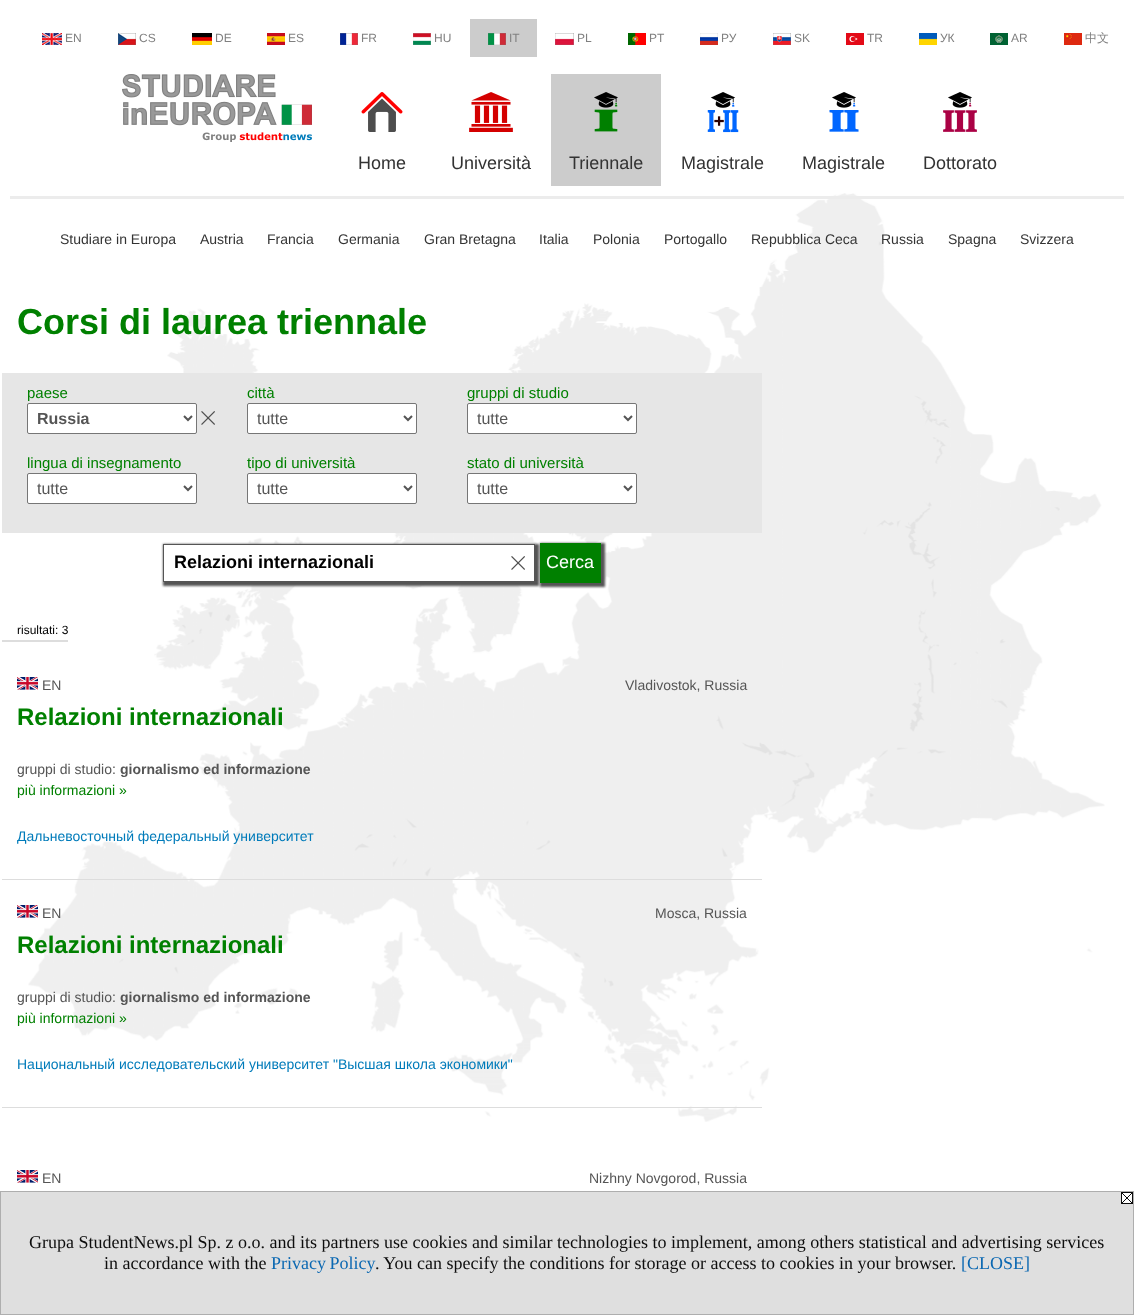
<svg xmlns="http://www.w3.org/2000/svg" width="1134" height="1315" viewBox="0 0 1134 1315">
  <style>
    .t1 { font: 12px Liberation Sans; fill: #808080; }
    .t2 { font: 500 12px WenQuanYi Zen Hei; fill: #808080; }
    .t3 { font: 18px Liberation Sans; fill: #333; }
    .t4 { font: 14px Liberation Sans; fill: #333; }
    .t5 { font: bold 36px Liberation Sans; fill: #008000; }
    .t6 { font: 15px Liberation Sans; fill: #008000; }
    .t7 { font: bold 16px Liberation Sans; fill: #555; }
    .t8 { font: 16px Liberation Sans; fill: #555; }
    .t9 { font: bold 18px Liberation Sans; fill: #000; }
    .t10 { font: 18px Liberation Sans; fill: #fff; }
    .t11 { font: 12px Liberation Sans; fill: #000; }
    .t12 { font: 14px Liberation Sans; fill: #555; }
    .t13 { font: bold 24px Liberation Sans; fill: #008000; }
    .t14 { font: bold 14px Liberation Sans; fill: #555; }
    .t15 { font: 14px Liberation Sans; fill: #008000; }
    .t16 { font: 14px Liberation Sans; fill: #007bba; }
    .t17 { font: 18px Liberation Serif; fill: #0d0d0d; }
    .t18 { font: 18px Liberation Serif; fill: #0b68b2; }
  </style>
  <rect width="100%" height="100%" fill="#fff"/>
  <image x="28" y="193" width="1077" height="929" href="images/1.png"/>
  <image x="42" y="33" width="20" height="12" href="images/2.png"/>
  <text x="65" y="42" class="t1">EN</text>
  <image x="118" y="33" width="18" height="12" href="images/3.png"/>
  <text x="139" y="42" class="t1">CS</text>
  <image x="192" y="33" width="20" height="12" href="images/4.png"/>
  <text x="215" y="42" class="t1">DE</text>
  <image x="267" y="33" width="18" height="12" href="images/5.png"/>
  <text x="288" y="42" class="t1">ES</text>
  <image x="340" y="33" width="18" height="12" href="images/6.png"/>
  <text x="361" y="42" class="t1">FR</text>
  <image x="413" y="33" width="18" height="12" href="images/7.png"/>
  <text x="434" y="42" class="t1">HU</text>
  <rect x="470" y="19" width="67" height="38" fill="#ccc"/>
  <image x="488" y="33" width="18" height="12" href="images/8.png"/>
  <text x="509" y="42" class="t1">IT</text>
  <image x="555" y="33" width="19" height="12" href="images/9.png"/>
  <text x="577" y="42" class="t1">PL</text>
  <image x="628" y="33" width="18" height="12" href="images/10.png"/>
  <text x="649" y="42" class="t1">PT</text>
  <image x="700" y="33" width="18" height="12" href="images/11.png"/>
  <text x="721" y="42" class="t1">РУ</text>
  <image x="773" y="33" width="18" height="12" href="images/12.png"/>
  <text x="794" y="42" class="t1">SK</text>
  <image x="846" y="33" width="18" height="12" href="images/13.png"/>
  <text x="867" y="42" class="t1">TR</text>
  <image x="919" y="33" width="18" height="12" href="images/14.png"/>
  <text x="940" y="42" class="t1">УК</text>
  <image x="990" y="33" width="18" height="12" href="images/15.png"/>
  <text x="1011" y="42" class="t1">AR</text>
  <image x="1064" y="33" width="18" height="12" href="images/16.png"/>
  <text x="1085" y="42" class="t2">中文</text>
  <image x="122" y="74" width="190" height="68" href="images/17.png"/>
  <image x="361" y="92" width="42" height="40" href="images/18.png"/>
  <text x="358" y="169" class="t3">Home</text>
  <image x="469" y="92" width="44" height="40" href="images/19.png"/>
  <text x="451" y="169" class="t3">Università</text>
  <rect x="551" y="74" width="110" height="112" fill="#ccc"/>
  <image x="594" y="92" width="24" height="40" href="images/20.png"/>
  <text x="569" y="169" class="t3">Triennale</text>
  <image x="707" y="92" width="32" height="41" href="images/21.png"/>
  <text x="681" y="169" class="t3">Magistrale</text>
  <image x="829" y="92" width="30" height="40" href="images/22.png"/>
  <text x="802" y="169" class="t3">Magistrale</text>
  <image x="943" y="92" width="34" height="40" href="images/23.png"/>
  <text x="923" y="169" class="t3">Dottorato</text>
  <rect x="10" y="196" width="1114" height="3" fill="#ececec"/>
  <text x="60" y="244" class="t4">Studiare in Europa</text>
  <text x="200" y="244" class="t4">Austria</text>
  <text x="267" y="244" class="t4">Francia</text>
  <text x="338" y="244" class="t4">Germania</text>
  <text x="424" y="244" class="t4">Gran Bretagna</text>
  <text x="539" y="244" class="t4">Italia</text>
  <text x="593" y="244" class="t4">Polonia</text>
  <text x="664" y="244" class="t4">Portogallo</text>
  <text x="751" y="244" class="t4">Repubblica Ceca</text>
  <text x="881" y="244" class="t4">Russia</text>
  <text x="948" y="244" class="t4">Spagna</text>
  <text x="1020" y="244" class="t4">Svizzera</text>
  <text x="17" y="334" class="t5">Corsi di laurea triennale</text>
  <rect x="2" y="373" width="760" height="160" fill="#e6e6e6"/>
  <text x="27" y="398" class="t6">paese</text>
  <rect x="27.5" y="403.5" width="169" height="30" rx="1.5" fill="#fff" stroke="#767676"/>
  <path d="M184 416L188 420L192 416" fill="none" stroke="#555" stroke-width="2"/>
  <text x="37" y="424" class="t7">Russia</text>
  <image x="201" y="411" width="14" height="14" href="images/24.png"/>
  <text x="247" y="398" class="t6">città</text>
  <rect x="247.5" y="403.5" width="169" height="30" rx="1.5" fill="#fff" stroke="#767676"/>
  <path d="M404 416L408 420L412 416" fill="none" stroke="#555" stroke-width="2"/>
  <text x="257" y="424" class="t8">tutte</text>
  <text x="467" y="398" class="t6">gruppi di studio</text>
  <rect x="467.5" y="403.5" width="169" height="30" rx="1.5" fill="#fff" stroke="#767676"/>
  <path d="M624 416L628 420L632 416" fill="none" stroke="#555" stroke-width="2"/>
  <text x="477" y="424" class="t8">tutte</text>
  <text x="27" y="468" class="t6">lingua di insegnamento</text>
  <rect x="27.5" y="473.5" width="169" height="30" rx="1.5" fill="#fff" stroke="#767676"/>
  <path d="M184 486L188 490L192 486" fill="none" stroke="#555" stroke-width="2"/>
  <text x="37" y="494" class="t8">tutte</text>
  <text x="247" y="468" class="t6">tipo di università</text>
  <rect x="247.5" y="473.5" width="169" height="30" rx="1.5" fill="#fff" stroke="#767676"/>
  <path d="M404 486L408 490L412 486" fill="none" stroke="#555" stroke-width="2"/>
  <text x="257" y="494" class="t8">tutte</text>
  <text x="467" y="468" class="t6">stato di università</text>
  <rect x="467.5" y="473.5" width="169" height="30" rx="1.5" fill="#fff" stroke="#767676"/>
  <path d="M624 486L628 490L632 486" fill="none" stroke="#555" stroke-width="2"/>
  <text x="477" y="494" class="t8">tutte</text>
  <rect x="163" y="544" width="376" height="42" fill="#555" filter="blur(1px)"/>
  <rect x="163.5" y="544.5" width="371" height="37" fill="#fff" stroke="#555"/>
  <text x="174" y="568" class="t9">Relazioni internazionali</text>
  <image x="511" y="556" width="14" height="14" href="images/25.png"/>
  <rect x="540" y="543" width="65" height="44" fill="#555" filter="blur(1px)"/>
  <rect x="540" y="543" width="61" height="40" fill="#008000"/>
  <text x="546" y="568" class="t10">Cerca</text>
  <rect x="2" y="640" width="66" height="2" fill="#ddd"/>
  <text x="17" y="634" class="t11">risultati: 3</text>
  <rect x="2" y="879" width="760" height="1" fill="#ddd"/>
  <image x="17" y="677" width="21" height="13" href="images/26.png"/>
  <text x="42" y="690" class="t12">EN</text>
  <text x="625" y="690" class="t12">Vladivostok, Russia</text>
  <text x="17" y="725" class="t13">Relazioni internazionali</text>
  <text x="17" y="774" class="t12">gruppi di studio:</text>
  <text x="120" y="774" class="t14">giornalismo ed informazione</text>
  <text x="17" y="795" class="t15">più informazioni »</text>
  <text x="17" y="841" class="t16">Дальневосточный федеральный университет</text>
  <rect x="2" y="1107" width="760" height="1" fill="#ddd"/>
  <image x="17" y="905" width="21" height="13" href="images/26.png"/>
  <text x="42" y="918" class="t12">EN</text>
  <text x="655" y="918" class="t12">Mosca, Russia</text>
  <text x="17" y="953" class="t13">Relazioni internazionali</text>
  <text x="17" y="1002" class="t12">gruppi di studio:</text>
  <text x="120" y="1002" class="t14">giornalismo ed informazione</text>
  <text x="17" y="1023" class="t15">più informazioni »</text>
  <text x="17" y="1069" class="t16">Национальный исследовательский университет "Высшая школа экономики"</text>
  <image x="17" y="1170" width="21" height="13" href="images/26.png"/>
  <text x="42" y="1183" class="t12">EN</text>
  <text x="589" y="1183" class="t12">Nizhny Novgorod, Russia</text>
  <rect x="0.5" y="1191.5" width="1133" height="123" fill="#dfdfdf" stroke="#aeaeae"/>
  <image x="1121" y="1192" width="12" height="12" href="images/27.png"/>
  <text x="29" y="1248" class="t17">Grupa StudentNews.pl Sp. z o.o. and its partners use cookies and similar technologies to implement, among others statistical and advertising services</text>
  <text x="104" y="1269" class="t17">in accordance with the</text>
  <text x="271" y="1269" word-spacing="-1" class="t18">Privacy Policy</text>
  <text x="375" y="1269" class="t17">. You can specify the conditions for storage or access to cookies in your browser.</text>
  <text x="961" y="1269" class="t18">[CLOSE]</text>
</svg>
